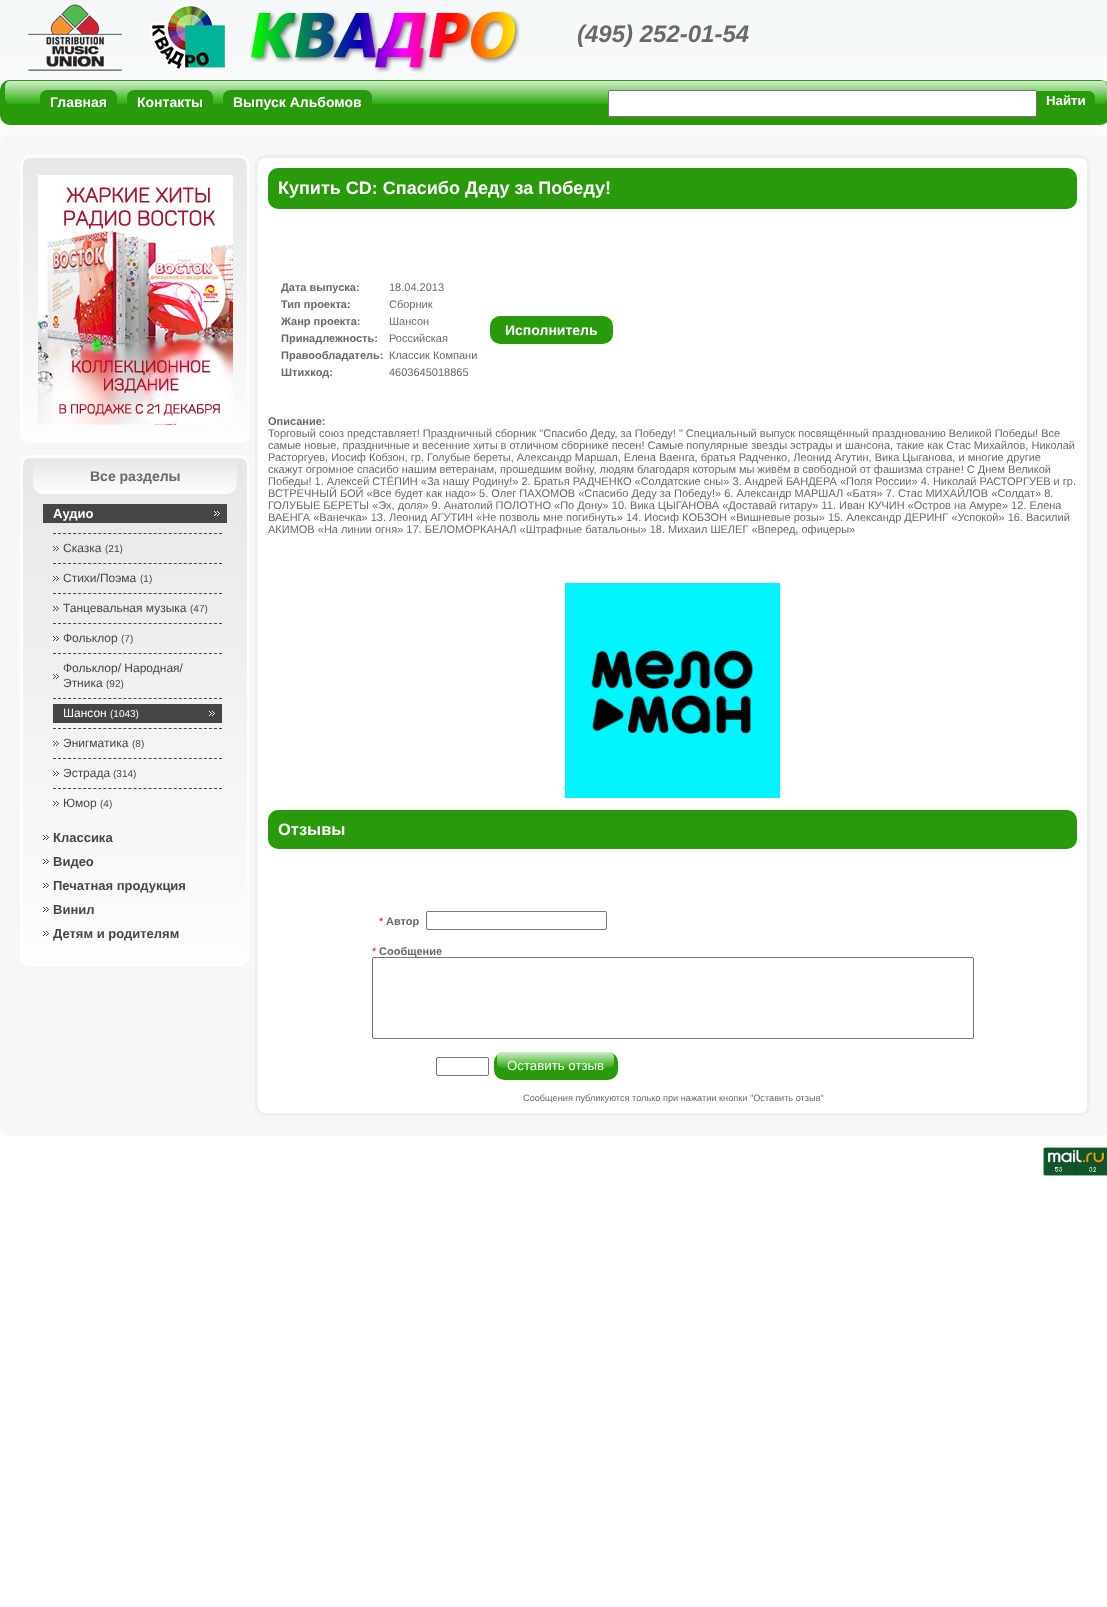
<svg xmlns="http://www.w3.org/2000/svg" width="1107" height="1607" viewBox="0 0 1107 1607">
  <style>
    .t1 { font: italic bold 24px Liberation Sans; fill: #696969; }
    .t2 { font: bold 14px Liberation Sans; fill: #fff; }
    .t3 { font: bold 13.25px Liberation Sans; fill: #fff; }
    .t4 { font: bold 14px Liberation Sans; fill: #696969; }
    .t5 { font: bold 13px Liberation Sans; fill: #fff; }
    .t6 { font: 12px Liberation Sans; fill: #464646; }
    .t7 { font: 10px Liberation Sans; fill: #464646; }
    .t8 { font: 12px Liberation Sans; fill: #fff; }
    .t9 { font: 10px Liberation Sans; fill: #fff; }
    .t10 { font: bold 13px Liberation Sans; fill: #464646; }
    .t11 { font: bold 18px Liberation Sans; fill: #fff; }
    .t12 { font: bold 11px Liberation Sans; fill: #696969; }
    .t13 { font: 11px Liberation Sans; fill: #696969; }
    .t14 { font: bold 16.5px Liberation Sans; fill: #fff; }
    .t15 { font: 11px Liberation Sans; fill: #f00; }
    .t16 { font: 13.25px Liberation Sans; fill: #fff; }
    .t17 { font: 9.2px Liberation Sans; fill: #696969; }
  </style>
  <defs>
    <clipPath id="clip1"><rect x="20" y="155" width="230" height="288" rx="10"/></clipPath>
    <linearGradient id="g1" gradientUnits="userSpaceOnUse" x1="135" y1="158" x2="135" y2="440"><stop offset="0" stop-color="#e7e7e7"/><stop offset="1" stop-color="#fdfdfd"/></linearGradient>
    <clipPath id="clip2"><rect x="20" y="455" width="230" height="511" rx="10"/></clipPath>
    <linearGradient id="g2" gradientUnits="userSpaceOnUse" x1="135" y1="458" x2="135" y2="963"><stop offset="0" stop-color="#e7e7e7"/><stop offset="1" stop-color="#fdfdfd"/></linearGradient>
  </defs>
  <rect width="100%" height="100%" fill="#fff"/>
  <image x="0" y="0" width="1107" height="145" href="images/1.png"/>
  <image x="28" y="4" width="94" height="67" href="images/2.png"/>
  <image x="150" y="4" width="77" height="67" href="images/3.png"/>
  <image x="250" y="11" width="270" height="62" href="images/4.png"/>
  <text x="577" y="42" class="t1">(495) 252-01-54</text>
  <rect x="0" y="80" width="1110" height="45" rx="10" fill="#299a0b"/>
  <image x="5" y="81" width="1102" height="23" href="images/5.png"/>
  <rect x="40" y="90" width="77" height="25" rx="7" fill="#299a0b"/>
  <text x="50" y="107" class="t2">Главная</text>
  <rect x="127" y="90" width="86" height="25" rx="7" fill="#299a0b"/>
  <text x="137" y="107" class="t2">Контакты</text>
  <rect x="223" y="90" width="149" height="25" rx="7" fill="#299a0b"/>
  <text x="233" y="107" class="t2">Выпуск Альбомов</text>
  <rect x="608.5" y="90.5" width="428" height="26" rx="1.5" fill="#fff" stroke="#767676"/>
  <path d="M1037 91H1088C1092 91 1095 94 1095 98V109C1095 113 1092 116 1088 116H1037Z" fill="#299a0b"/>
  <text x="1046" y="105" class="t3">Найти</text>
  <rect x="0" y="135" width="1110" height="1001" rx="10" fill="#f6f8f5"/>
  <g clip-path="url(#clip1)">
    <rect x="20" y="158" width="230" height="282" fill="url(#g1)"/>
  </g>
  <rect x="21.5" y="156.5" width="227" height="285" rx="8.5" fill="none" stroke="#fff" stroke-width="3"/>
  <image x="38" y="175" width="195" height="250" href="images/6.png"/>
  <g clip-path="url(#clip2)">
    <rect x="20" y="458" width="230" height="505" fill="url(#g2)"/>
  </g>
  <rect x="21.5" y="456.5" width="227" height="508" rx="8.5" fill="none" stroke="#fff" stroke-width="3"/>
  <image x="33" y="465" width="204" height="29" href="images/7.png"/>
  <text x="90" y="481" class="t4">Все разделы</text>
  <rect x="43" y="504" width="184" height="19" fill="#464646"/>
  <image x="214" y="511" width="6" height="5" href="images/8.png"/>
  <text x="53" y="518" class="t5">Аудио</text>
  <path d="M53 533.5H222" fill="none" stroke="#464646" stroke-dasharray="3 2.03"/>
  <path d="M53 563.5H222" fill="none" stroke="#464646" stroke-dasharray="3 2.03"/>
  <image x="53" y="546" width="6" height="5" href="images/9.png"/>
  <text x="63" y="552" class="t6">Сказка</text>
  <text x="105" y="552" class="t7">(21)</text>
  <path d="M53 593.5H222" fill="none" stroke="#464646" stroke-dasharray="3 2.03"/>
  <image x="53" y="576" width="6" height="5" href="images/10.png"/>
  <text x="63" y="582" class="t6">Стихи/Поэма</text>
  <text x="140" y="582" class="t7">(1)</text>
  <path d="M53 623.5H222" fill="none" stroke="#464646" stroke-dasharray="3 2.03"/>
  <image x="53" y="606" width="6" height="5" href="images/11.png"/>
  <text x="63" y="612" class="t6">Танцевальная музыка</text>
  <text x="190" y="612" class="t7">(47)</text>
  <path d="M53 653.5H222" fill="none" stroke="#464646" stroke-dasharray="3 2.03"/>
  <image x="53" y="636" width="6" height="5" href="images/12.png"/>
  <text x="63" y="642" class="t6">Фольклор</text>
  <text x="121" y="642" class="t7">(7)</text>
  <path d="M53 698.5H222" fill="none" stroke="#464646" stroke-dasharray="3 2.03"/>
  <image x="53" y="674" width="6" height="5" href="images/13.png"/>
  <text x="63" y="672" class="t6">Фольклор/ Народная/</text>
  <text x="63" y="687" class="t6">Этника</text>
  <text x="106" y="687" class="t7">(92)</text>
  <path d="M53 728.5H222" fill="none" stroke="#464646" stroke-dasharray="3 2.03"/>
  <rect x="53" y="704" width="169" height="19" fill="#464646"/>
  <image x="209" y="711" width="6" height="5" href="images/8.png"/>
  <text x="63" y="717" class="t8">Шансон</text>
  <text x="110" y="717" class="t9">(1043)</text>
  <path d="M53 758.5H222" fill="none" stroke="#464646" stroke-dasharray="3 2.03"/>
  <image x="53" y="741" width="6" height="5" href="images/14.png"/>
  <text x="63" y="747" class="t6">Энигматика</text>
  <text x="132" y="747" class="t7">(8)</text>
  <path d="M53 788.5H222" fill="none" stroke="#464646" stroke-dasharray="3 2.03"/>
  <image x="53" y="771" width="6" height="5" href="images/15.png"/>
  <text x="63" y="777" class="t6">Эстрада</text>
  <text x="113" y="777" class="t7">(314)</text>
  <image x="53" y="801" width="6" height="5" href="images/16.png"/>
  <text x="63" y="807" class="t6">Юмор</text>
  <text x="100" y="807" class="t7">(4)</text>
  <image x="43" y="835" width="6" height="5" href="images/17.png"/>
  <text x="53" y="842" class="t10">Классика</text>
  <image x="43" y="859" width="6" height="5" href="images/18.png"/>
  <text x="53" y="866" class="t10">Видео</text>
  <image x="43" y="883" width="6" height="5" href="images/19.png"/>
  <text x="53" y="890" class="t10">Печатная продукция</text>
  <image x="43" y="907" width="6" height="5" href="images/20.png"/>
  <text x="53" y="914" class="t10">Винил</text>
  <image x="43" y="931" width="6" height="5" href="images/21.png"/>
  <text x="53" y="938" class="t10">Детям и родителям</text>
  <rect x="256.5" y="156.5" width="832" height="958" rx="8.5" fill="#fff" stroke="#efefef" stroke-width="3"/>
  <rect x="268" y="168" width="809" height="41" rx="10" fill="#299a0b"/>
  <text x="278" y="194" class="t11">Купить CD: Спасибо Деду за Победу!</text>
  <text x="281" y="291" class="t12">Дата выпуска:</text>
  <text x="389" y="291" class="t13">18.04.2013</text>
  <text x="281" y="308" class="t12">Тип проекта:</text>
  <text x="389" y="308" class="t13">Сборник</text>
  <text x="281" y="325" class="t12">Жанр проекта:</text>
  <text x="389" y="325" class="t13">Шансон</text>
  <text x="281" y="342" class="t12">Принадлежность:</text>
  <text x="389" y="342" class="t13">Российская</text>
  <text x="281" y="359" class="t12">Правообладатель:</text>
  <text x="389" y="359" class="t13">Классик Компани</text>
  <text x="281" y="376" class="t12">Штихкод:</text>
  <text x="389" y="376" class="t13">4603645018865</text>
  <rect x="490" y="316" width="123" height="28" rx="10" fill="#299a0b"/>
  <text x="505" y="335" class="t2">Исполнитель</text>
  <text x="268" y="425" class="t12">Описание:</text>
  <text x="268" y="437" class="t13">Торговый союз представляет! Праздничный сборник "Спасибо Деду, за Победу! " Специальный выпуск посвящённый празднованию Великой Победы! Все</text>
  <text x="268" y="449" class="t13">самые новые, праздничные и весенние хиты в отличном сборнике песен! Самые популярные звезды эстрады и шансона, такие как Стас Михайлов, Николай</text>
  <text x="268" y="461" class="t13">Расторгуев, Иосиф Кобзон, гр. Голубые береты, Александр Маршал, Елена Ваенга, братья Радченко, Леонид Агутин, Вика Цыганова, и многие другие</text>
  <text x="268" y="473" class="t13">скажут огромное спасибо нашим ветеранам, прошедшим войну, людям благодаря которым мы живём в свободной от фашизма стране! С Днем Великой</text>
  <text x="268" y="485" class="t13">Победы! 1. Алексей СТЁПИН «За нашу Родину!» 2. Братья РАДЧЕНКО «Солдатские сны» 3. Андрей БАНДЕРА «Поля России» 4. Николай РАСТОРГУЕВ и гр.</text>
  <text x="268" y="497" class="t13">ВСТРЕЧНЫЙ БОЙ «Все будет как надо» 5. Олег ПАХОМОВ «Спасибо Деду за Победу!» 6. Александр МАРШАЛ «Батя» 7. Стас МИХАЙЛОВ «Солдат» 8.</text>
  <text x="268" y="509" class="t13">ГОЛУБЫЕ БЕРЕТЫ «Эх, доля» 9. Анатолий ПОЛОТНО «По Дону» 10. Вика ЦЫГАНОВА «Доставай гитару» 11. Иван КУЧИН «Остров на Амуре» 12. Елена</text>
  <text x="268" y="521" class="t13">ВАЕНГА «Ванечка» 13. Леонид АГУТИН «Не позволь мне погибнуть» 14. Иосиф КОБЗОН «Вишневые розы» 15. Александр ДЕРИНГ «Успокой» 16. Василий</text>
  <text x="268" y="533" class="t13">АКИМОВ «На линии огня» 17. БЕЛОМОРКАНАЛ «Штрафные батальоны» 18. Михаил ШЕЛЕГ «Вперед, офицеры»</text>
  <image x="565" y="583" width="215" height="215" href="images/22.png"/>
  <rect x="268" y="810" width="809" height="39" rx="10" fill="#299a0b"/>
  <text x="278" y="835" class="t14">Отзывы</text>
  <text x="379" y="925" class="t15">*</text>
  <text x="386" y="925" class="t12">Автор</text>
  <rect x="426.5" y="911.5" width="180" height="18" rx="1.5" fill="none" stroke="#767676"/>
  <text x="372" y="955" class="t15">*</text>
  <text x="379" y="955" class="t12">Сообщение</text>
  <rect x="372.5" y="957.5" width="601" height="81" rx="1.5" fill="#fff" stroke="#767676"/>
  <rect x="436.5" y="1057.5" width="52" height="18" rx="1.5" fill="none" stroke="#767676"/>
  <rect x="494" y="1052" width="124" height="28" rx="10" fill="#299a0b"/>
  <image x="497" y="1052" width="117" height="16" href="images/23.png"/>
  <text x="507" y="1070" class="t16">Оставить отзыв</text>
  <text x="523" y="1101" class="t17">Сообщения публикуются только при нажатии кнопки "Оставить отзыв"</text>
  <image x="1043" y="1147" width="64" height="29" href="images/24.png"/>
</svg>
